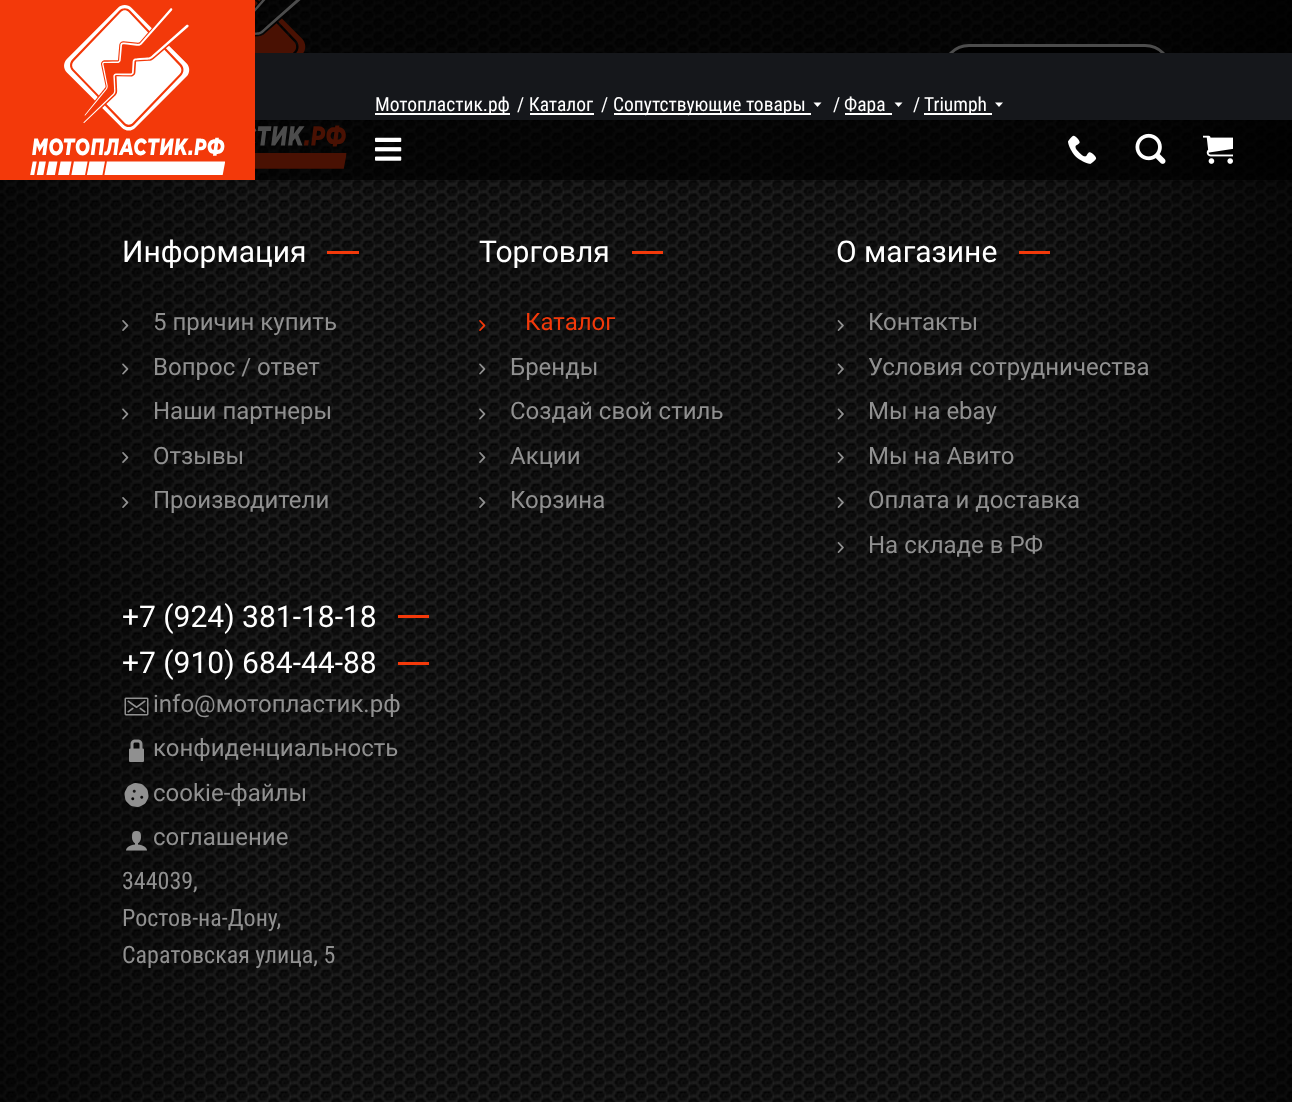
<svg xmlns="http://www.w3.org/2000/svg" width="1292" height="1102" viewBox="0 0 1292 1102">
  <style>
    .t1 { font: 19.5px Roboto Condensed; fill: #fff; }
    .t2 { font: 30px Roboto; fill: #fff; }
    .t3 { font: 24px Roboto; fill: #909090; }
    .t4 { font: 24px Roboto; fill: #f3390a; }
    .t5 { font: 24px Roboto Condensed; fill: #909090; }
  </style>
  <rect width="100%" height="100%" fill="#fff"/>
  <image x="0" y="0" width="1292" height="1102" href="images/6.png"/>
  <image x="255" y="0" width="92" height="169" href="images/7.png"/>
  <rect x="943.5" y="45.5" width="227" height="51" rx="25.5" fill="#000" stroke="#fff" stroke-width="3"/>
  <rect x="255" y="0" width="1037" height="180" fill="#000000b3"/>
  <rect x="0" y="0" width="255" height="180" fill="#f3390a"/>
  <image x="30" y="5" width="195" height="170" href="images/1.png"/>
  <rect x="255" y="53" width="1037" height="67" fill="#15171b"/>
  <rect x="375" y="113" width="135" height="2" fill="#fff"/>
  <text x="375" y="111" class="t1">Мотопластик.рф</text>
  <text x="517" y="111" class="t1">/ Каталог</text>
  <rect x="530" y="113" width="64" height="2" fill="#fff"/>
  <text x="601" y="111" class="t1">/</text>
  <rect x="614" y="113" width="197" height="2" fill="#fff"/>
  <text x="613" y="111" class="t1">Сопутствующие товары</text>
  <path d="M813.5 102.5L817.5 107L821.5 102.5Z" fill="#fff"/>
  <text x="833" y="111" class="t1">/</text>
  <rect x="845" y="113" width="47" height="2" fill="#fff"/>
  <text x="844" y="111" class="t1">Фара</text>
  <path d="M894.5 102.5L898.5 107L902.5 102.5Z" fill="#fff"/>
  <text x="913" y="111" class="t1">/</text>
  <rect x="924" y="113" width="68" height="2" fill="#fff"/>
  <text x="924" y="111" class="t1">Triumph</text>
  <path d="M995 102.5L999 107L1003 102.5Z" fill="#fff"/>
  <image x="375" y="137" width="27" height="24" href="images/2.png"/>
  <image x="1068" y="135" width="29" height="29" href="images/3.png"/>
  <image x="1135" y="133" width="31" height="31" href="images/4.png"/>
  <image x="1203" y="135" width="30" height="29" href="images/5.png"/>
  <text x="122" y="262" class="t2">Информация</text>
  <rect x="327" y="251" width="32" height="3" fill="#f3390a"/>
  <image x="122" y="320" width="7" height="11" href="images/8.png"/>
  <text x="153" y="330" class="t3">5 причин купить</text>
  <image x="122" y="363" width="7" height="12" href="images/9.png"/>
  <text x="153" y="375" class="t3">Вопрос / ответ</text>
  <image x="122" y="408" width="7" height="12" href="images/10.png"/>
  <text x="153" y="419" class="t3">Наши партнеры</text>
  <image x="122" y="452" width="7" height="11" href="images/11.png"/>
  <text x="153" y="464" class="t3">Отзывы</text>
  <image x="122" y="497" width="7" height="11" href="images/12.png"/>
  <text x="153" y="508" class="t3">Производители</text>
  <text x="479" y="262" class="t2">Торговля</text>
  <rect x="632" y="251" width="31" height="3" fill="#f3390a"/>
  <image x="479" y="320" width="7" height="11" href="images/13.png"/>
  <text x="525" y="330" class="t4">Каталог</text>
  <image x="479" y="363" width="7" height="12" href="images/14.png"/>
  <text x="510" y="375" class="t3">Бренды</text>
  <image x="479" y="408" width="7" height="12" href="images/15.png"/>
  <text x="510" y="419" class="t3">Cоздай свой стиль</text>
  <image x="479" y="452" width="7" height="11" href="images/16.png"/>
  <text x="510" y="464" class="t3">Акции</text>
  <image x="479" y="497" width="7" height="11" href="images/17.png"/>
  <text x="510" y="508" class="t3">Корзина</text>
  <text x="836" y="262" class="t2">О магазине</text>
  <rect x="1019" y="251" width="31" height="3" fill="#f3390a"/>
  <image x="837" y="320" width="7" height="11" href="images/18.png"/>
  <text x="868" y="330" class="t3">Контакты</text>
  <image x="837" y="363" width="7" height="12" href="images/19.png"/>
  <text x="868" y="375" class="t3">Условия сотрудничества</text>
  <image x="837" y="408" width="7" height="12" href="images/20.png"/>
  <text x="868" y="419" class="t3">Мы на ebay</text>
  <image x="837" y="452" width="7" height="11" href="images/21.png"/>
  <text x="868" y="464" class="t3">Мы на Авито</text>
  <image x="837" y="497" width="7" height="11" href="images/22.png"/>
  <text x="868" y="508" class="t3">Оплата и доставка</text>
  <image x="837" y="542" width="7" height="11" href="images/23.png"/>
  <text x="868" y="553" class="t3">На складе в РФ</text>
  <text x="122" y="627" class="t2">+7 (924) 381-18-18</text>
  <rect x="398" y="615" width="31" height="3" fill="#f3390a"/>
  <text x="122" y="673" class="t2">+7 (910) 684-44-88</text>
  <rect x="398" y="662" width="31" height="3" fill="#f3390a"/>
  <image x="124" y="697" width="25" height="19" href="images/24.png"/>
  <text x="153" y="712" class="t3">info@мотопластик.рф</text>
  <image x="129" y="739" width="15" height="23" href="images/25.png"/>
  <text x="153" y="756" class="t3">конфиденциальность</text>
  <image x="124" y="783" width="25" height="24" href="images/26.png"/>
  <text x="153" y="801" class="t3">cookie-файлы</text>
  <image x="126" y="831" width="21" height="20" href="images/27.png"/>
  <text x="153" y="845" class="t3">соглашение</text>
  <text x="122" y="889" class="t5">344039,</text>
  <text x="122" y="926" class="t5">Ростов-на-Дону,</text>
  <text x="122" y="963" class="t5">Саратовская улица, 5</text>
</svg>
